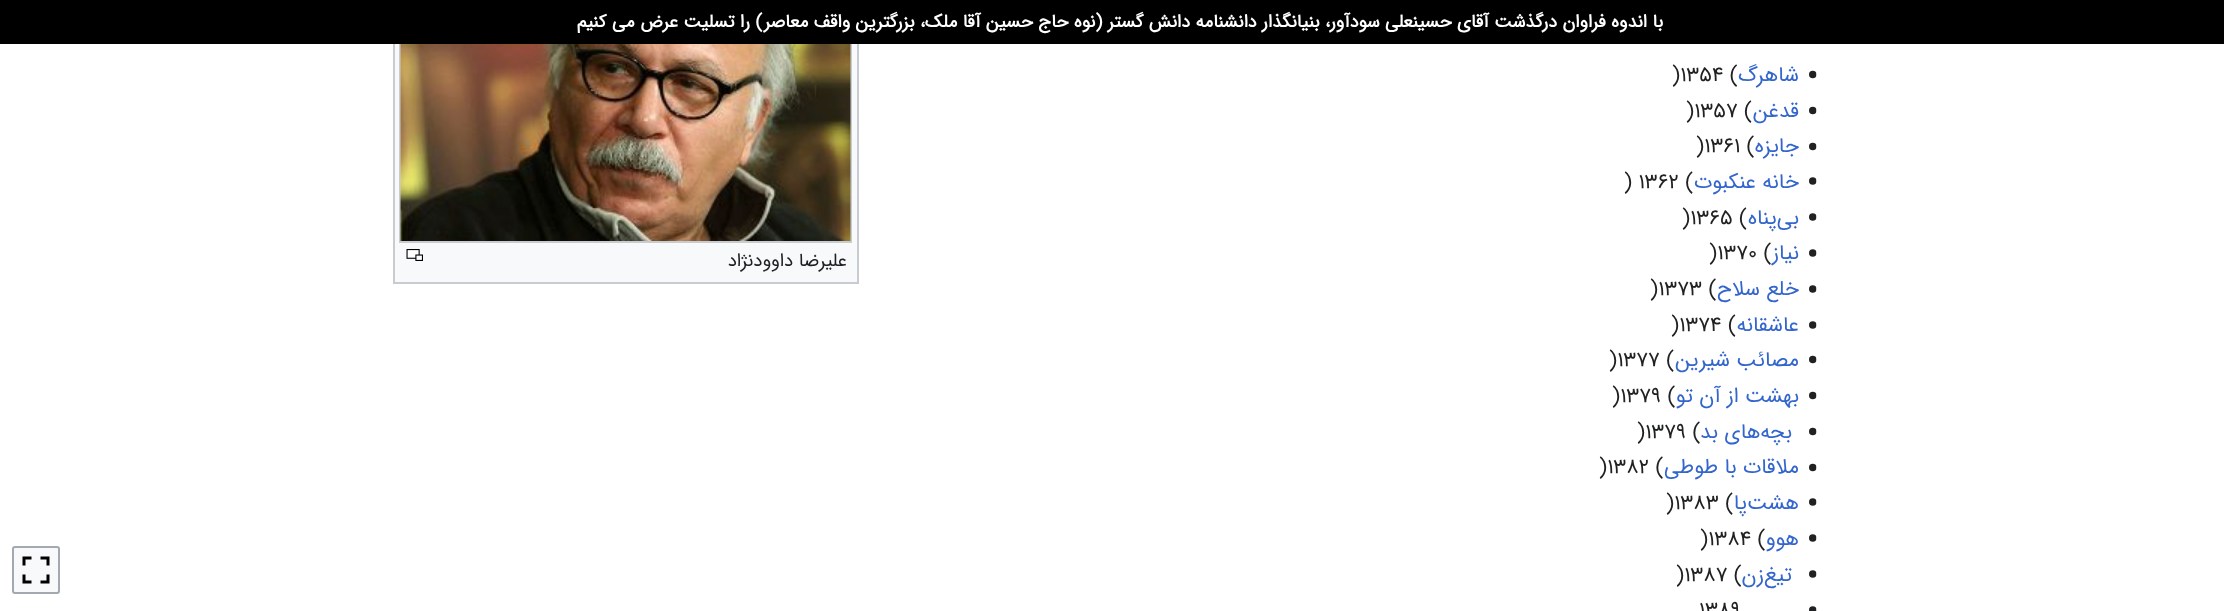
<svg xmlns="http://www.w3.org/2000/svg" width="2224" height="611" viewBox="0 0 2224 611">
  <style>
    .t1 { font: bold 18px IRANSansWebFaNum; direction: rtl; fill: #fff; }
    .t2 { font: 21px IRANSansWebFaNum; direction: rtl; fill: #36c; }
    .t3 { font: 21px IRANSansWebFaNum; fill: #202122; }
    .t4 { font: 18.5px IRANSansWebFaNum; direction: rtl; fill: #202122; }
  </style>
  <rect width="100%" height="100%" fill="#fff"/>
  <rect x="395" y="44" width="462" height="238" fill="#f8f9fa"/>
  <rect x="400" y="-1" width="451" height="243" fill="none" stroke="#c8ccd1" stroke-width="2"/>
  <rect x="0" y="0" width="2224" height="44" fill="#000"/>
  <text x="1663" y="27" class="t1">با اندوه فراوان درگذشت آقای حسینعلی سودآور، بنیانگذار دانشنامه دانش گستر (نوه حاج حسین آقا ملک، بزرگترین واقف معاصر) را تسلیت عرض می کنیم</text>
  <image x="1809" y="70" width="8" height="9" href="images/1.png"/>
  <text x="1799" y="81" class="t2">شاهرگ</text>
  <text x="1672" y="81" class="t3">)۱۳۵۴ (</text>
  <image x="1809" y="106" width="8" height="9" href="images/1.png"/>
  <text x="1799" y="117" class="t2">قدغن</text>
  <text x="1686" y="117" class="t3">)۱۳۵۷ (</text>
  <image x="1809" y="142" width="8" height="9" href="images/1.png"/>
  <text x="1799" y="152" class="t2">جايزه</text>
  <text x="1696" y="152" class="t3">)۱۳۶۱ (</text>
  <image x="1809" y="177" width="8" height="8" href="images/2.png"/>
  <text x="1799" y="188" class="t2">خانه عنكبوت</text>
  <text x="1624" y="188" class="t3">) ۱۳۶۲ (</text>
  <image x="1809" y="213" width="8" height="8" href="images/2.png"/>
  <text x="1799" y="224" class="t2">بی‌پناه</text>
  <text x="1682" y="224" class="t3">)۱۳۶۵ (</text>
  <image x="1809" y="249" width="8" height="8" href="images/2.png"/>
  <text x="1799" y="259" class="t2">نياز</text>
  <text x="1709" y="259" class="t3">)۱۳۷۰ (</text>
  <image x="1809" y="285" width="8" height="8" href="images/2.png"/>
  <text x="1799" y="295" class="t2">خلع سلاح</text>
  <text x="1650" y="295" class="t3">)۱۳۷۳ (</text>
  <image x="1809" y="321" width="8" height="8" href="images/2.png"/>
  <text x="1799" y="331" class="t2">عاشقانه</text>
  <text x="1671" y="331" class="t3">)۱۳۷۴ (</text>
  <image x="1809" y="355" width="8" height="9" href="images/1.png"/>
  <text x="1799" y="366" class="t2">مصائب شيرين</text>
  <text x="1609" y="366" class="t3">)۱۳۷۷ (</text>
  <image x="1809" y="391" width="8" height="9" href="images/1.png"/>
  <text x="1799" y="402" class="t2">بهشت از آن تو</text>
  <text x="1612" y="402" class="t3">)۱۳۷۹ (</text>
  <image x="1809" y="427" width="8" height="9" href="images/1.png"/>
  <text x="1792" y="438" class="t2">بچه‌های بد</text>
  <text x="1637" y="438" class="t3">)۱۳۷۹ (</text>
  <image x="1809" y="463" width="8" height="9" href="images/1.png"/>
  <text x="1799" y="473" class="t2">ملاقات با طوطی</text>
  <text x="1599" y="473" class="t3">)۱۳۸۲ (</text>
  <image x="1809" y="498" width="8" height="8" href="images/2.png"/>
  <text x="1799" y="509" class="t2">هشت‌پا</text>
  <text x="1666" y="509" class="t3">)۱۳۸۳ (</text>
  <image x="1809" y="534" width="8" height="8" href="images/2.png"/>
  <text x="1799" y="545" class="t2">هوو</text>
  <text x="1700" y="545" class="t3">)۱۳۸۴ (</text>
  <image x="1809" y="570" width="8" height="8" href="images/2.png"/>
  <text x="1792" y="581" class="t2">تيغ‌زن</text>
  <text x="1676" y="581" class="t3">)۱۳۸۷ (</text>
  <image x="1809" y="606" width="8" height="5" href="images/3.png"/>
  <text x="1699" y="616" class="t3">۱۳۸۹</text>
  <rect x="393" y="282" width="465" height="2" fill="#c8ccd1"/>
  <rect x="857" y="44" width="2" height="240" fill="#c8ccd1"/>
  <rect x="393" y="44" width="2" height="240" fill="#c8ccd1"/>
  <image x="400" y="44" width="451" height="197" href="images/4.png"/>
  <image x="406" y="249" width="17" height="12" href="images/5.png"/>
  <text x="847" y="266" class="t4">علیرضا داوودنژاد</text>
  <rect x="13" y="547" width="46" height="46" rx="2" fill="#f8f9fa" stroke="#a2a9b1" stroke-width="2"/>
  <image x="22" y="556" width="28" height="28" href="images/6.png"/>
</svg>
